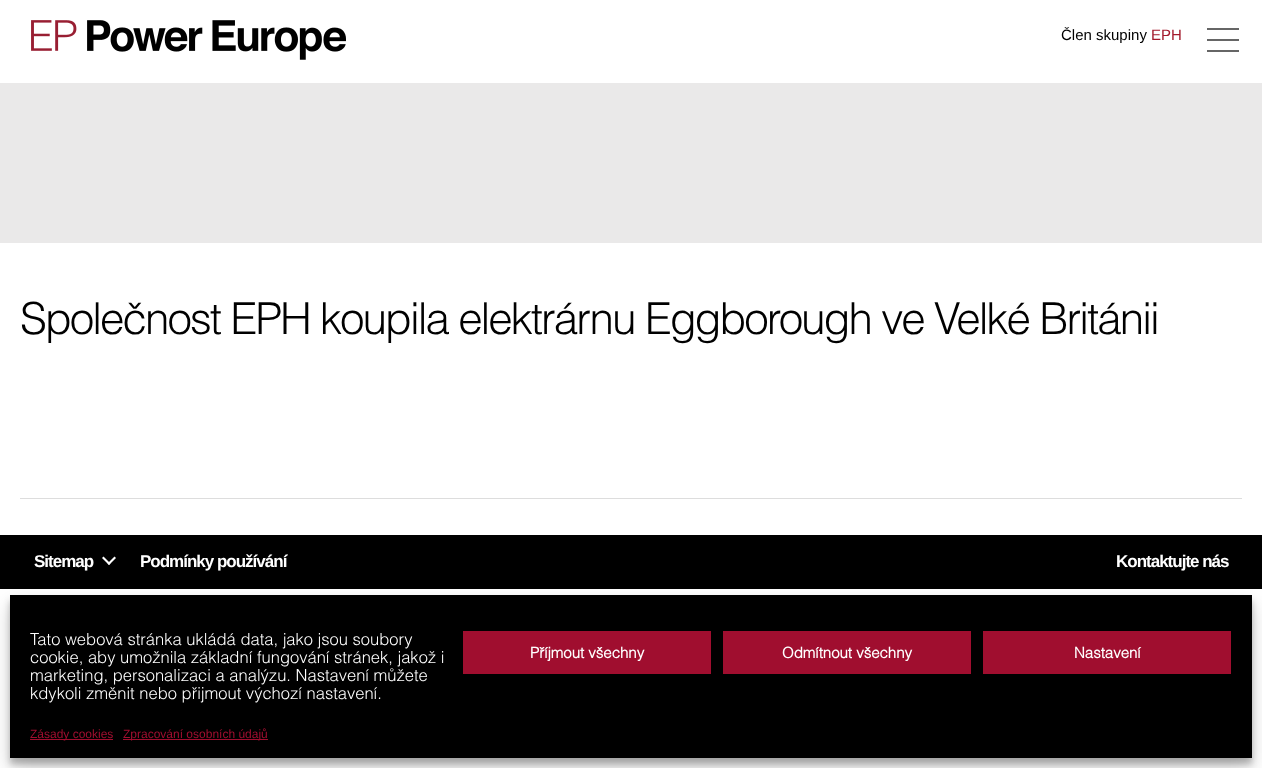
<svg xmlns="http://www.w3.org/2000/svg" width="1262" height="768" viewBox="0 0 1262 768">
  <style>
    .t1 { font: 15px Liberation Sans; fill: #000; }
    .t2 { font: 15px Liberation Sans; fill: #a3192b; }
    .t3 { font: 300 44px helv; letter-spacing: -2px; fill: #000; }
    .t4 { font: bold 17px Liberation Sans; letter-spacing: -1px; fill: #fff; }
    .t5 { font: 300 16.55px helv; fill: #fff; }
    .t6 { font: bold 15px helv; fill: #fff; }
    .t7 { font: 12px Liberation Sans; fill: #a00e2f; }
  </style>
  <rect width="100%" height="100%" fill="#fff"/>
  <image x="31" y="20" width="315" height="40" href="images/1.png"/>
  <text x="1061" y="40" class="t1">Člen skupiny</text>
  <text x="1151" y="40" class="t2">EPH</text>
  <rect x="0" y="83" width="1262" height="160" fill="#eae9e9"/>
  <rect x="20" y="498" width="1222" height="1" fill="#ddd"/>
  <text x="20" y="334" class="t3">Společnost EPH koupila elektrárnu Eggborough ve Velké Británii</text>
  <rect x="0" y="535" width="1262" height="54" fill="#000"/>
  <text x="34" y="567" class="t4">Sitemap</text>
  <path d="M107.5 563.5L114.5 556.5L116 558L109 565Z" fill="#fff"/>
  <path d="M102 558L103.5 556.5L110.5 563.5L109 565Z" fill="#fff"/>
  <text x="140" y="567" class="t4">Podmínky používání</text>
  <text x="1116" y="567" class="t4">Kontaktujte nás</text>
  <rect x="1207" y="39" width="32" height="2" fill="#666"/>
  <rect x="1207" y="28" width="32" height="2" fill="#666"/>
  <rect x="1207" y="50" width="32" height="2" fill="#666"/>
  <rect x="10" y="601" width="1242" height="163" fill="#0000003b" filter="blur(3px)"/>
  <rect x="10" y="605" width="1242" height="163" fill="#00000030" filter="blur(10px)"/>
  <rect x="10" y="595" width="1242" height="163" fill="#000"/>
  <text x="30" y="645" class="t5">Tato webová stránka ukládá data, jako jsou soubory</text>
  <text x="30" y="663" class="t5">cookie, aby umožnila základní fungování stránek, jakož i</text>
  <text x="30" y="681" class="t5">marketing, personalizaci a analýzu. Nastavení můžete</text>
  <text x="30" y="699" class="t5">kdykoli změnit nebo přijmout výchozí nastavení.</text>
  <rect x="463" y="631" width="248" height="43" fill="#a00e2f"/>
  <text x="530" y="658" class="t6">Příjmout všechny</text>
  <rect x="723" y="631" width="248" height="43" fill="#a00e2f"/>
  <text x="782" y="658" class="t6">Odmítnout všechny</text>
  <rect x="983" y="631" width="248" height="43" fill="#a00e2f"/>
  <text x="1074" y="658" class="t6">Nastavení</text>
  <rect x="30" y="739" width="83" height="1" fill="#a00e2f"/>
  <text x="30" y="738" class="t7">Zásady cookies</text>
  <rect x="123" y="739" width="145" height="1" fill="#a00e2f"/>
  <text x="123" y="738" class="t7">Zpracování osobních údajů</text>
</svg>
